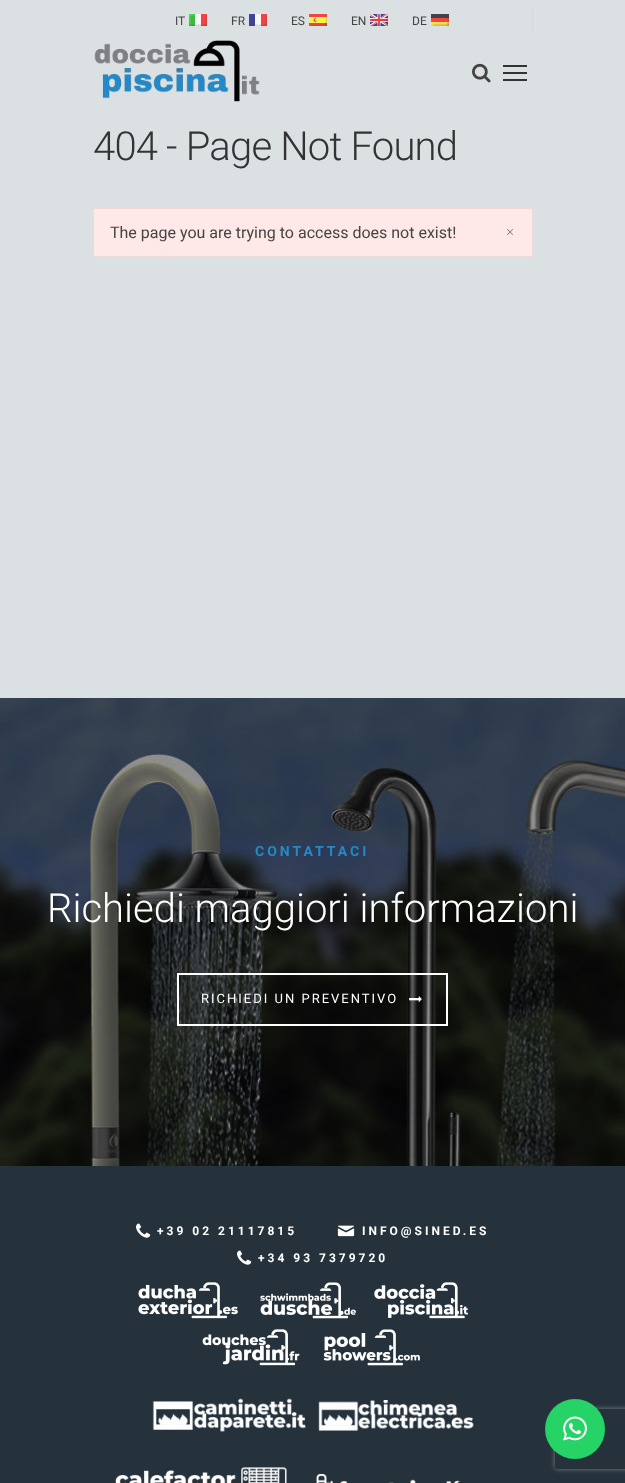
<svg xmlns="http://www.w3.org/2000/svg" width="625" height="1483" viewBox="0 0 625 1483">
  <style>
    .t1 { font: 12px Roboto; fill: #444; }
    .t2 { font: 300 40px Roboto; letter-spacing: -0.8px; fill: #333; }
    .t3 { font: 16px Roboto; fill: #444; }
    .t4 { font: bold 14px Roboto; letter-spacing: 3px; fill: #238ac7; }
    .t5 { font: 300 40px Roboto; fill: #fff; }
    .t6 { font: 13px Roboto; letter-spacing: 2px; fill: #fff; }
    .t7 { font: bold 12px Roboto; letter-spacing: 3px; fill: #fff; }
  </style>
  <defs>
    <clipPath id="clip1"><path d="M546 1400H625V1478H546ZM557 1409H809C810 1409 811 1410 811 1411V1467C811 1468 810 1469 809 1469H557C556 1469 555 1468 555 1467V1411C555 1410 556 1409 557 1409Z" clip-rule="evenodd"/></clipPath>
  </defs>
  <rect width="100%" height="100%" fill="#dbe0e3"/>
  <rect x="532" y="6" width="1" height="27" fill="#d6d9db"/>
  <text x="175" y="25" class="t1">IT</text>
  <image x="189" y="14" width="18" height="12" href="images/1.png"/>
  <text x="231" y="25" class="t1">FR</text>
  <image x="249" y="14" width="18" height="12" href="images/2.png"/>
  <text x="291" y="25" class="t1">ES</text>
  <image x="309" y="14" width="18" height="12" href="images/3.png"/>
  <text x="351" y="25" class="t1">EN</text>
  <image x="370" y="14" width="18" height="12" href="images/4.png"/>
  <text x="412" y="25" class="t1">DE</text>
  <image x="431" y="14" width="18" height="12" href="images/5.png"/>
  <image x="94" y="40" width="166" height="62" href="images/6.png"/>
  <image x="472" y="63" width="19" height="20" href="images/7.png"/>
  <rect x="503" y="65" width="24" height="2" fill="#333"/>
  <rect x="503" y="72" width="24" height="2" fill="#333"/>
  <rect x="503" y="79" width="24" height="2" fill="#333"/>
  <text x="93" y="160" class="t2">404 - Page Not Found</text>
  <rect x="93.5" y="208.5" width="439" height="48" rx="1.5" fill="#ffe8e8" stroke="#efd9d9"/>
  <text x="110" y="238" class="t3">The page you are trying to access does not exist!</text>
  <image x="507" y="229" width="6" height="6" href="images/8.png"/>
  <image x="0" y="698" width="625" height="468" href="images/9.png"/>
  <text x="255" y="856" class="t4">CONTATTACI</text>
  <text x="47" y="922" class="t5">Richiedi maggiori informazioni</text>
  <rect x="178" y="974" width="269" height="51" fill="none" stroke="#fff" stroke-width="2"/>
  <text x="201" y="1003" class="t6">RICHIEDI UN PREVENTIVO</text>
  <image x="409" y="996" width="13" height="7" href="images/10.png"/>
  <rect x="0" y="1166" width="625" height="317" fill="#25323b"/>
  <image x="136" y="1223" width="15" height="15" href="images/11.png"/>
  <text x="157" y="1235" class="t7">+39 02 21117815</text>
  <image x="337" y="1225" width="18" height="12" href="images/12.png"/>
  <text x="362" y="1235" class="t7">INFO@SINED.ES</text>
  <image x="237" y="1250" width="15" height="15" href="images/11.png"/>
  <text x="258" y="1262" class="t7">+34 93 7379720</text>
  <image x="138" y="1282" width="100" height="37" href="images/13.png"/>
  <image x="260" y="1282" width="96" height="37" href="images/14.png"/>
  <image x="374" y="1282" width="95" height="37" href="images/15.png"/>
  <image x="202" y="1329" width="98" height="37" href="images/16.png"/>
  <image x="323" y="1329" width="97" height="37" href="images/17.png"/>
  <image x="152" y="1398" width="154" height="34" href="images/18.png"/>
  <image x="318" y="1400" width="156" height="31" href="images/19.png"/>
  <image x="115" y="1467" width="172" height="16" href="images/20.png"/>
  <image x="316" y="1474" width="144" height="9" href="images/21.png"/>
  <g clip-path="url(#clip1)">
    <rect x="555" y="1409" width="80" height="60" rx="2" fill="#808080" filter="blur(2.5px)"/>
  </g>
  <circle cx="575" cy="1429" r="30" fill="#25d366"/>
  <image x="563" y="1416" width="24" height="25" href="images/22.png"/>
</svg>
